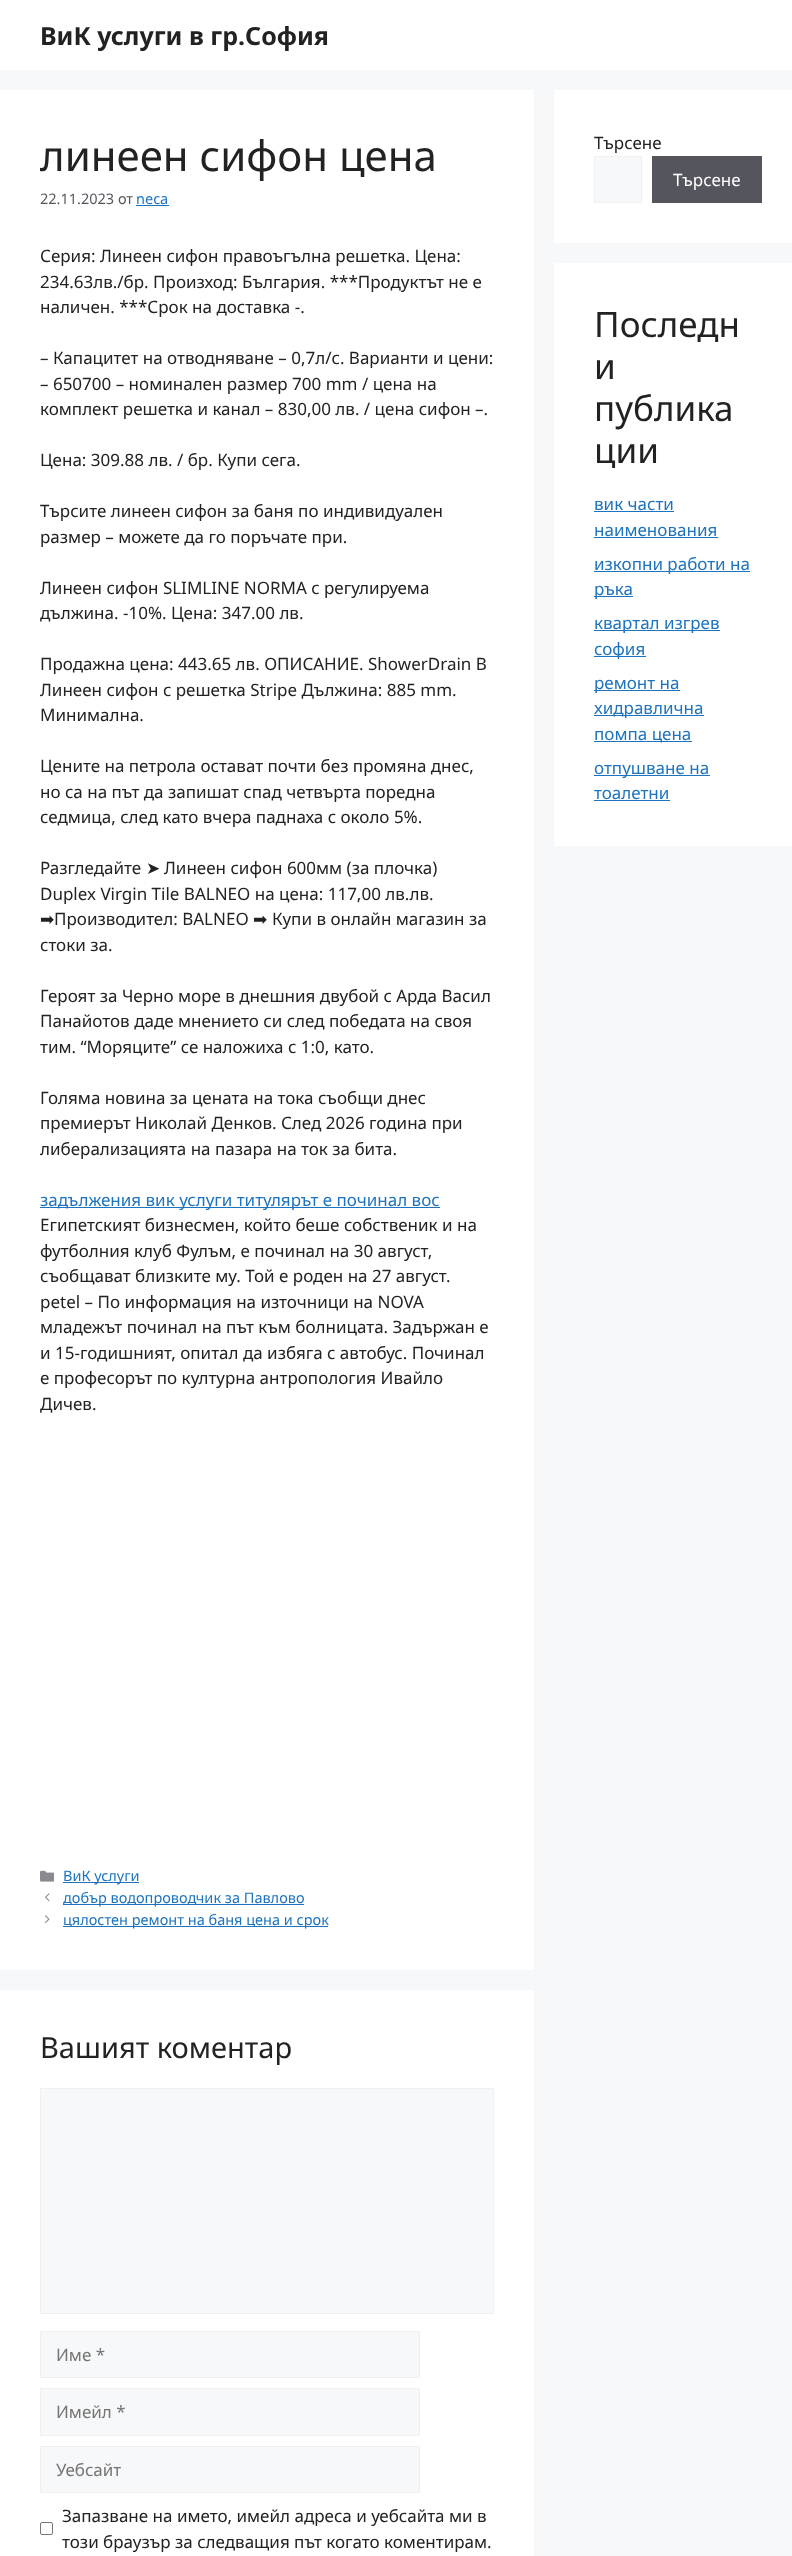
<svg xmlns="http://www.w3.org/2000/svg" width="792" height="2556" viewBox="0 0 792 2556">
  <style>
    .t1 { font: bold 25px Noto Sans; fill: #222; }
    .t2 { font: 42px Noto Sans; fill: #222; }
    .t3 { font: 14.5px Noto Sans; fill: #575760; }
    .t4 { font: 14.5px Noto Sans; fill: #1e73be; }
    .t5 { font: 17px Noto Sans; fill: #222; }
    .t6 { font: 17px DejaVu Sans; fill: #222; }
    .t7 { font: 17px Noto Sans; fill: #1e73be; }
    .t8 { font: 29px Noto Sans; fill: #222; }
    .t9 { font: 17px Noto Sans; fill: #757575; }
    .t10 { font: 17px Noto Sans; fill: #fff; }
    .t11 { font: 35px Noto Sans; fill: #222; }
  </style>
  <rect width="100%" height="100%" fill="#f7f8f9"/>
  <rect x="0" y="0" width="792" height="70" fill="#fff"/>
  <text x="40" y="45" class="t1">ВиК услуги в гр.София</text>
  <rect x="0" y="90" width="534" height="1880" fill="#fff"/>
  <text x="40" y="171" class="t2">линеен сифон цена</text>
  <text x="40" y="204" class="t3">22.11.2023 от</text>
  <text x="136" y="204" class="t4">neca</text>
  <rect x="136" y="205" width="33" height="1" fill="#1e73be"/>
  <text x="40" y="262" class="t5">Серия: Линеен сифон правоъгълна решетка. Цена:</text>
  <text x="40" y="288" class="t5">234.63лв./бр. Произход: България. ***Продуктът не е</text>
  <text x="40" y="313" class="t5">наличен. ***Срок на доставка -.</text>
  <text x="40" y="364" class="t5">– Капацитет на отводняване – 0,7л/с. Варианти и цени:</text>
  <text x="40" y="390" class="t5">– 650700 – номинален размер 700 mm / цена на</text>
  <text x="40" y="415" class="t5">комплект решетка и канал – 830,00 лв. / цена сифон –.</text>
  <text x="40" y="466" class="t5">Цена: 309.88 лв. / бр. Купи сега.</text>
  <text x="40" y="517" class="t5">Търсите линеен сифон за баня по индивидуален</text>
  <text x="40" y="543" class="t5">размер – можете да го поръчате при.</text>
  <text x="40" y="594" class="t5">Линеен сифон SLIMLINE NORMA с регулируема</text>
  <text x="40" y="619" class="t5">дължина. -10%. Цена: 347.00 лв.</text>
  <text x="40" y="670" class="t5">Продажна цена: 443.65 лв. ОПИСАНИЕ. ShowerDrain B</text>
  <text x="40" y="696" class="t5">Линеен сифон с решетка Stripe Дължина: 885 mm.</text>
  <text x="40" y="721" class="t5">Минимална.</text>
  <text x="40" y="772" class="t5">Цените на петрола остават почти без промяна днес,</text>
  <text x="40" y="798" class="t5">но са на път да запишат спад четвърта поредна</text>
  <text x="40" y="823" class="t5">седмица, след като вчера паднаха с около 5%.</text>
  <text x="40" y="874" class="t5">Разгледайте</text>
  <text x="146" y="874" class="t6">➤</text>
  <text x="164" y="874" class="t5">Линеен сифон 600мм (за плочка)</text>
  <text x="40" y="900" class="t5">Duplex Virgin Tile BALNEO на цена: 117,00 лв.лв.</text>
  <text x="40" y="925" class="t6">➡</text>
  <text x="54" y="925" class="t5">Производител: BALNEO</text>
  <text x="253" y="925" class="t6">➡</text>
  <text x="272" y="925" class="t5">Купи в онлайн магазин за</text>
  <text x="40" y="951" class="t5">стоки за.</text>
  <text x="40" y="1002" class="t5">Героят за Черно море в днешния двубой с Арда Васил</text>
  <text x="40" y="1027" class="t5">Панайотов даде мнението си след победата на своя</text>
  <text x="40" y="1053" class="t5">тим. “Моряците” се наложиха с 1:0, като.</text>
  <text x="40" y="1104" class="t5">Голяма новина за цената на тока съобщи днес</text>
  <text x="40" y="1129" class="t5">премиерът Николай Денков. След 2026 година при</text>
  <text x="40" y="1155" class="t5">либерализацията на пазара на ток за бита.</text>
  <rect x="40" y="1207" width="400" height="1" fill="#1e73be"/>
  <text x="40" y="1206" class="t7">задължения вик услуги титулярът е починал вос</text>
  <text x="40" y="1231" class="t5">Египетският бизнесмен, който беше собственик и на</text>
  <text x="40" y="1257" class="t5">футболния клуб Фулъм, е починал на 30 август,</text>
  <text x="40" y="1282" class="t5">съобщават близките му. Той е роден на 27 август.</text>
  <text x="40" y="1308" class="t5">petel – По информация на източници на NOVA</text>
  <text x="40" y="1333" class="t5">младежът починал на път към болницата. Задържан е</text>
  <text x="40" y="1359" class="t5">и 15-годишният, опитал да избяга с автобус. Починал</text>
  <text x="40" y="1384" class="t5">е професорът по културна антропология Ивайло</text>
  <text x="40" y="1410" class="t5">Дичев.</text>
  <image x="40" y="1870" width="14" height="12" href="images/1.png"/>
  <rect x="63" y="1882" width="76" height="1" fill="#1e73be"/>
  <text x="63" y="1881" class="t4">ВиК услуги</text>
  <image x="45" y="1893" width="5" height="9" href="images/2.png"/>
  <rect x="63" y="1904" width="241" height="1" fill="#1e73be"/>
  <text x="63" y="1903" class="t4">добър водопроводчик за Павлово</text>
  <image x="45" y="1915" width="5" height="9" href="images/3.png"/>
  <rect x="63" y="1926" width="265" height="1" fill="#1e73be"/>
  <text x="63" y="1925" class="t4">цялостен ремонт на баня цена и срок</text>
  <rect x="0" y="1990" width="534" height="566" fill="#fff"/>
  <text x="40" y="2058" class="t8">Вашият коментар</text>
  <rect x="40.5" y="2088.5" width="453" height="225" fill="#f7f8f9" stroke="#f0f0f0"/>
  <rect x="40.5" y="2331.5" width="379" height="46" fill="#f7f8f9" stroke="#f0f0f0"/>
  <text x="56" y="2361" class="t9">Име *</text>
  <rect x="40.5" y="2388.5" width="379" height="47" fill="#f7f8f9" stroke="#f0f0f0"/>
  <text x="56" y="2418" class="t9">Имейл *</text>
  <rect x="40.5" y="2446.5" width="379" height="46" fill="#f7f8f9" stroke="#f0f0f0"/>
  <text x="56" y="2476" class="t9">Уебсайт</text>
  <rect x="40.5" y="2522.5" width="12" height="12" rx="1.5" fill="none" stroke="#767676"/>
  <text x="62" y="2522" class="t5">Запазване на името, имейл адреса и уебсайта ми в</text>
  <text x="62" y="2548" class="t5">този браузър за следващия път когато коментирам.</text>
  <rect x="554" y="90" width="238" height="153" fill="#fff"/>
  <text x="594" y="149" class="t5">Търсене</text>
  <rect x="594.5" y="156.5" width="47" height="46" fill="#f7f8f9" stroke="#f0f0f0"/>
  <rect x="652" y="156" width="110" height="47" fill="#55555e"/>
  <text x="673" y="186" class="t10">Търсене</text>
  <rect x="554" y="263" width="238" height="583" fill="#fff"/>
  <text x="594" y="337" class="t11">Последн</text>
  <text x="594" y="379" class="t11">и</text>
  <text x="594" y="421" class="t11">публика</text>
  <text x="594" y="463" class="t11">ции</text>
  <text x="594" y="510" class="t7">вик части</text>
  <rect x="594" y="511" width="80" height="1" fill="#1e73be"/>
  <text x="594" y="536" class="t7">наименования</text>
  <rect x="594" y="537" width="124" height="1" fill="#1e73be"/>
  <rect x="594" y="571" width="156" height="1" fill="#1e73be"/>
  <text x="594" y="570" class="t7">изкопни работи на</text>
  <rect x="594" y="596" width="39" height="1" fill="#1e73be"/>
  <text x="594" y="595" class="t7">ръка</text>
  <rect x="594" y="630" width="126" height="1" fill="#1e73be"/>
  <text x="594" y="629" class="t7">квартал изгрев</text>
  <rect x="594" y="656" width="52" height="1" fill="#1e73be"/>
  <text x="594" y="655" class="t7">софия</text>
  <rect x="594" y="690" width="86" height="1" fill="#1e73be"/>
  <text x="594" y="689" class="t7">ремонт на</text>
  <rect x="594" y="715" width="110" height="1" fill="#1e73be"/>
  <text x="594" y="714" class="t7">хидравлична</text>
  <rect x="594" y="741" width="98" height="1" fill="#1e73be"/>
  <text x="594" y="740" class="t7">помпа цена</text>
  <rect x="594" y="775" width="116" height="1" fill="#1e73be"/>
  <text x="594" y="774" class="t7">отпушване на</text>
  <text x="594" y="799" class="t7">тоалетни</text>
  <rect x="594" y="800" width="76" height="1" fill="#1e73be"/>
</svg>
